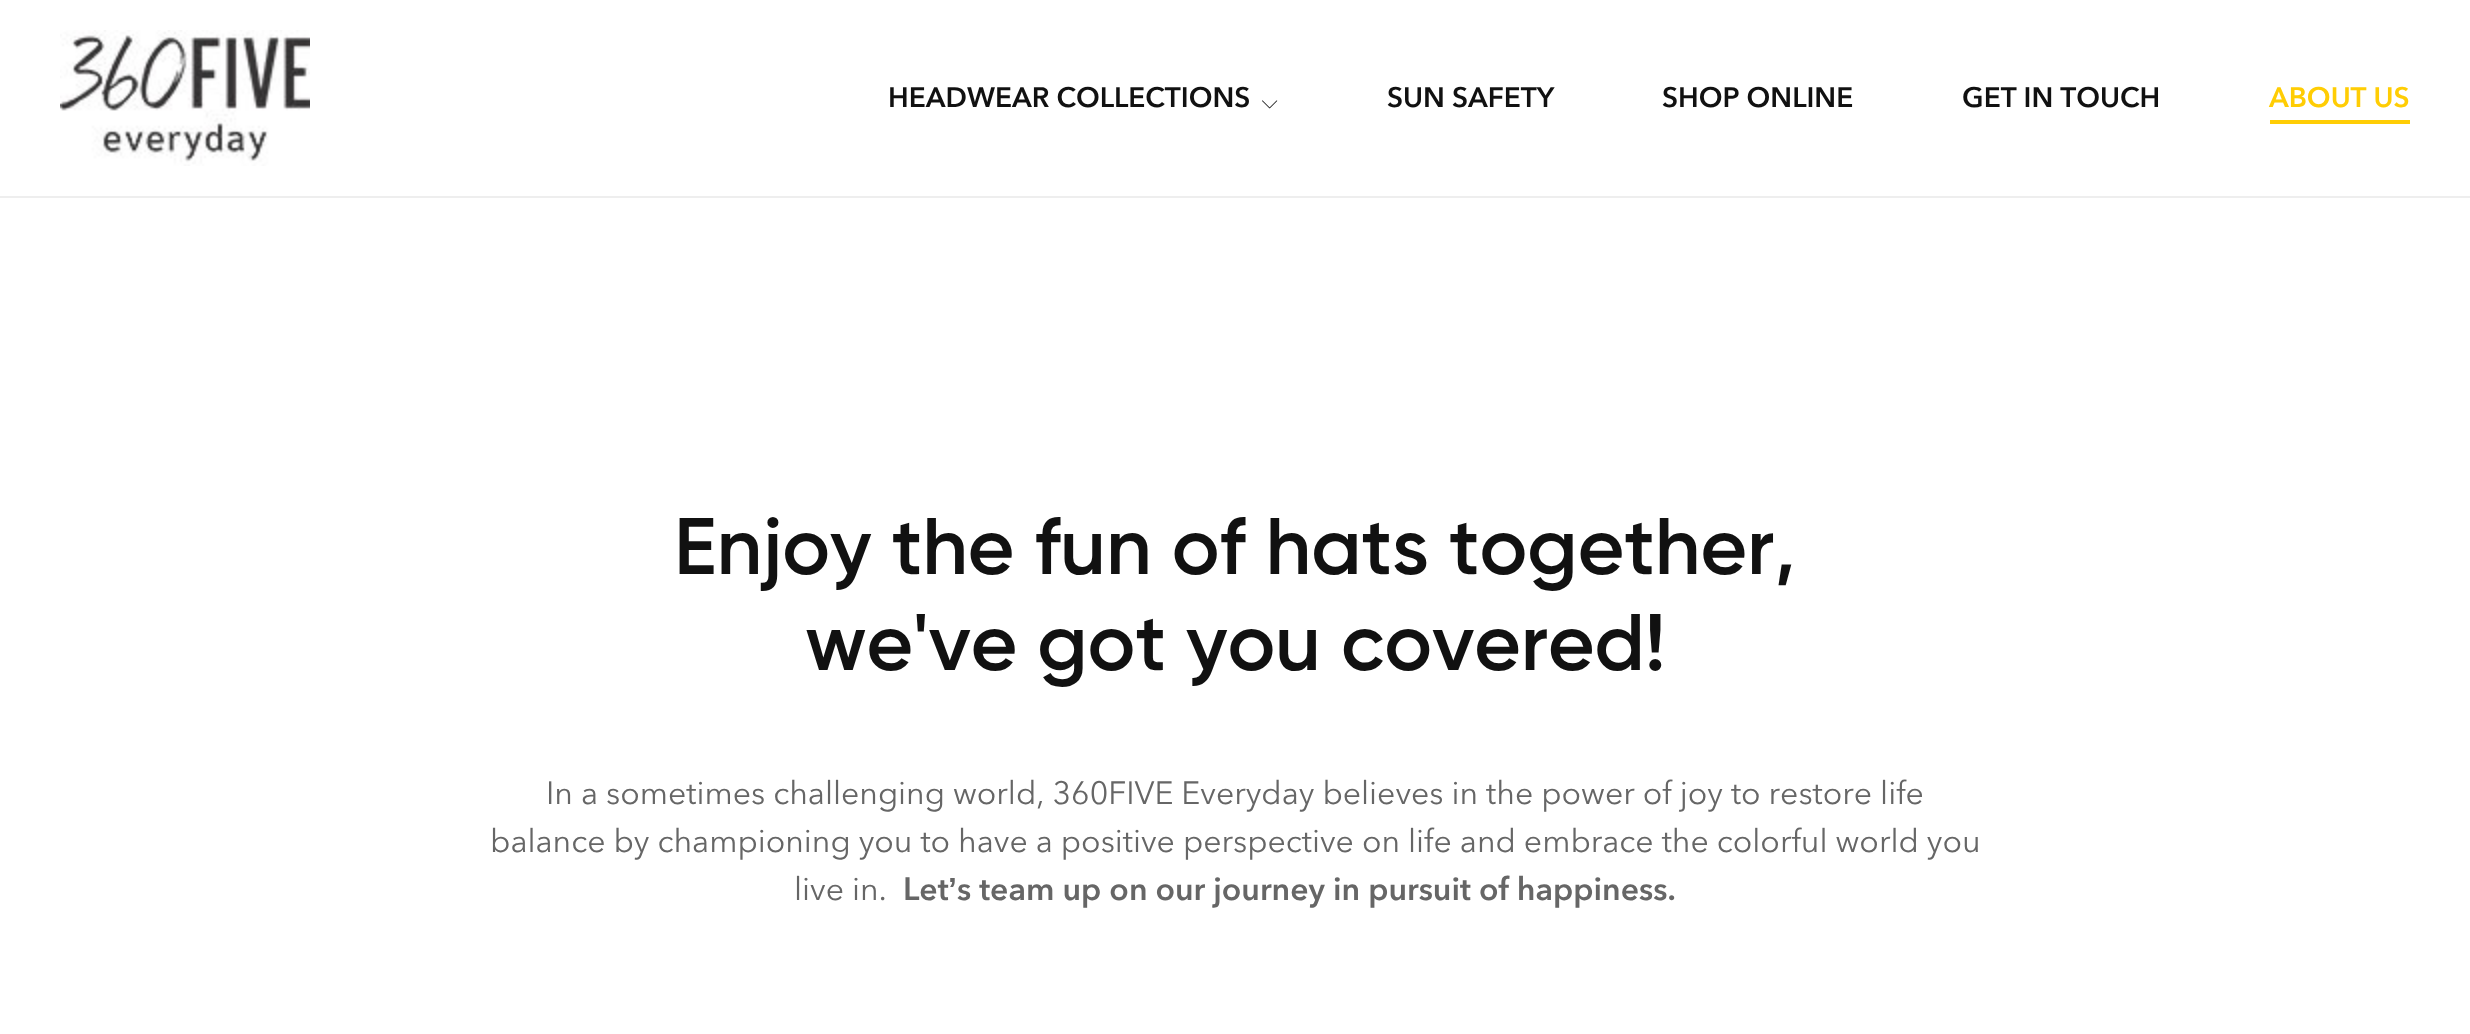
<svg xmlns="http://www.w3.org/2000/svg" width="2470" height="1034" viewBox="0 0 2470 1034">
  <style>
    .t1 { font: 500 28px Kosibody; fill: #111; }
    .t2 { font: 500 28px Kosibody; fill: #ffcd04; }
    .t3 { font: 600 80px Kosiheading; fill: #111; }
    .t4 { font: 32px Kosibody; fill: #666; }
    .t5 { font: 500 32px Kosibody; fill: #666; }
    .t6 { font: bold 32px Liberation Sans; fill: #666; }
  </style>
  <rect width="100%" height="100%" fill="#fff"/>
  <rect x="0" y="196" width="2470" height="2" fill="#eee"/>
  <image x="60" y="30" width="250" height="136" href="images/1.png"/>
  <text x="888" y="107" class="t1">HEADWEAR COLLECTIONS</text>
  <image x="1262" y="100" width="16" height="9" href="images/2.png"/>
  <text x="1387" y="107" class="t1">SUN SAFETY</text>
  <text x="1662" y="107" class="t1">SHOP ONLINE</text>
  <text x="1962" y="107" class="t1">GET IN TOUCH</text>
  <text x="2269" y="107" class="t2">ABOUT US</text>
  <rect x="2270" y="120" width="140" height="4" fill="#ffcd04"/>
  <text x="674" y="574" class="t3">Enjoy the fun of hats together,</text>
  <text x="805" y="670" class="t3">we've got you covered!</text>
  <text x="546" y="804" class="t4">In a sometimes challenging world, 360FIVE Everyday believes in the power of joy to restore life</text>
  <text x="490" y="852" class="t4">balance by championing you to have a positive perspective on life and embrace the colorful world you</text>
  <text x="794" y="900" class="t4">live in.</text>
  <text x="903" y="900" class="t5">Let</text>
  <text x="948" y="900" class="t6">’</text>
  <text x="957" y="900" class="t5">s team up on our journey in pursuit of happiness.</text>
</svg>
